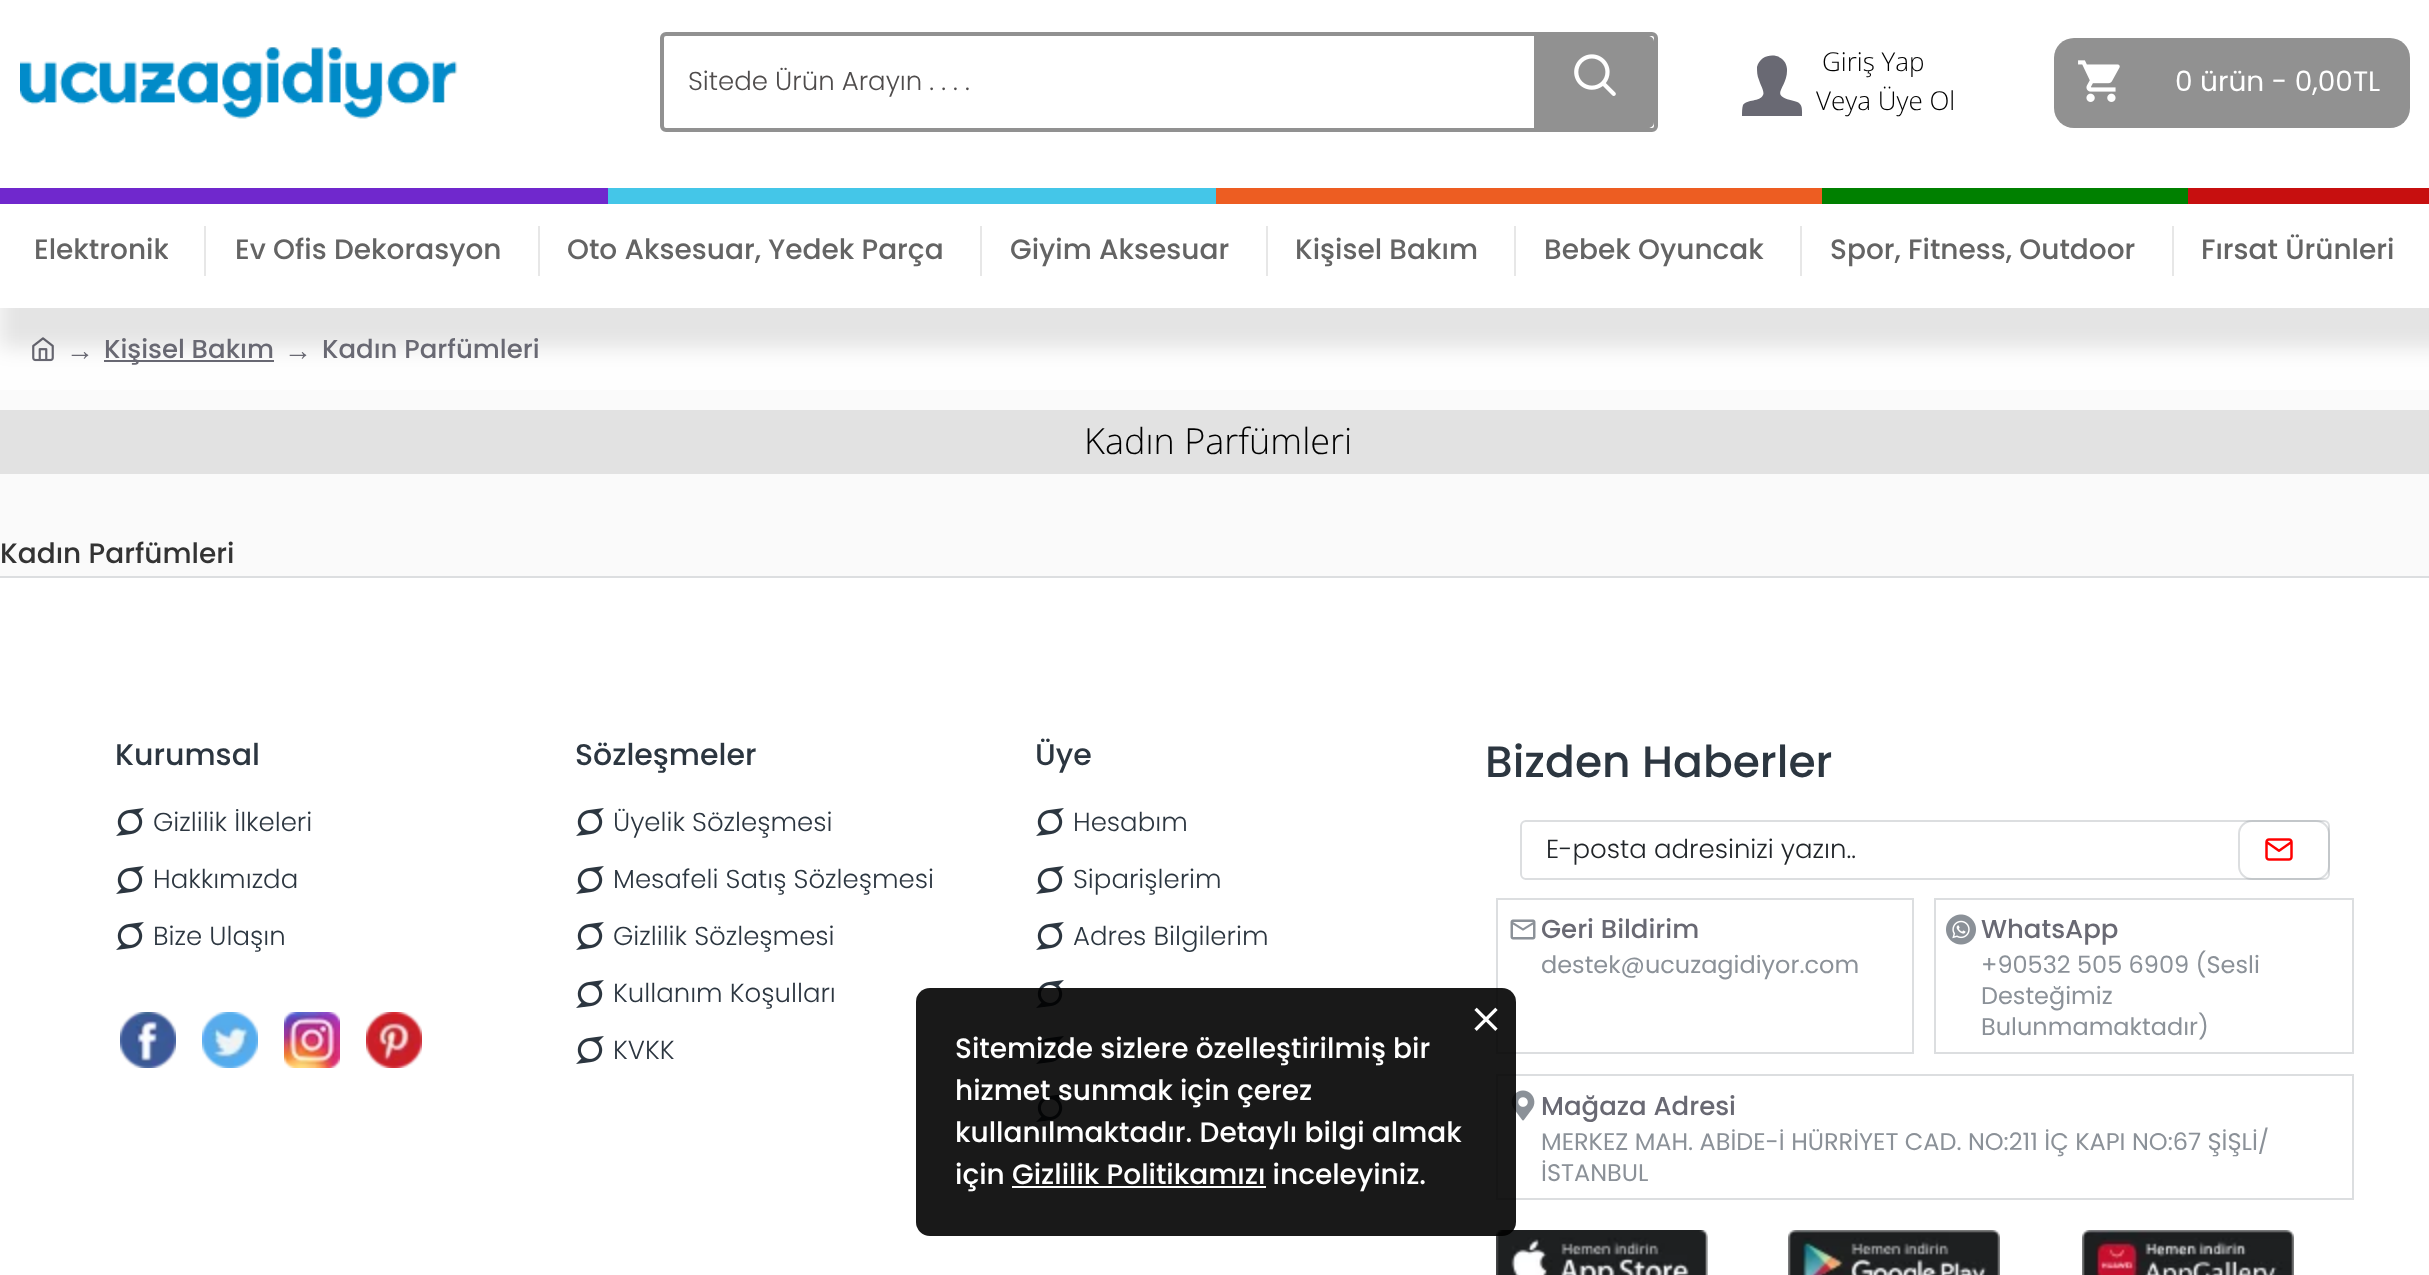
<svg xmlns="http://www.w3.org/2000/svg" width="2429" height="1275" viewBox="0 0 2429 1275">
  <style>
    .t1 { font: 300 26px Poppins; fill: #4f4c4c; }
    .t2 { font: 300 26px Open Sans; fill: #000; }
    .t3 { font: 28px Poppins; fill: #fff; }
    .t4 { font: 500 28px Poppins; fill: #646464; }
    .t5 { font: 28px Liberation Serif; fill: #696973; }
    .t6 { font: 500 26px Poppins; fill: #696973; }
    .t7 { font: 300 36px Open Sans; fill: #000; }
    .t8 { font: 500 28px Poppins; fill: #333; }
    .t9 { font: 500 30px Poppins; fill: #2c3640; }
    .t10 { font: 300 26px Poppins; fill: #2c3640; }
    .t11 { font: 500 44px Poppins; fill: #2c3640; }
    .t12 { font: 300 26px Poppins; fill: #212529; }
    .t13 { font: 24px Poppins; fill: #8b9198; }
    .t14 { font: 500 28px Poppins; fill: #fff; }
  </style>
  <defs>
    <clipPath id="clip1"><rect x="34" y="230" width="134" height="42"/></clipPath>
  </defs>
  <rect width="100%" height="100%" fill="#fafafa"/>
  <rect x="0" y="308" width="2429" height="82" fill="#fefefe"/>
  <image x="32" y="337" width="22" height="25" href="images/4.png"/>
  <rect x="104" y="360" width="170" height="2" fill="#696973"/>
  <rect x="0" y="-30" width="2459" height="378" fill="#0000001a" filter="blur(10px)"/>
  <rect x="0" y="0" width="2429" height="308" fill="#fff"/>
  <image x="20" y="47" width="438" height="72" href="images/1.png"/>
  <rect x="662" y="34" width="994" height="96" rx="4" fill="none" stroke="#919191" stroke-width="4"/>
  <text x="688" y="90" class="t1">Sitede Ürün Arayın . . . .</text>
  <path d="M1534 36H1648C1651.5 36 1654 38.5 1654 42V122C1654 125.5 1651.5 128 1648 128H1534Z" fill="#919191"/>
  <image x="1574" y="54" width="42" height="42" href="images/2.png"/>
  <path d="M1794 101C1767 95 1788 89 1787 69C1786 52 1761 51 1757 67C1757 71 1757 76 1759 80C1760 84 1765 92 1763 95C1760 102 1747 99 1743 105C1742 108 1742 112 1742 116H1802C1802 108 1803 103 1794 101Z" fill="#696973"/>
  <text x="1822" y="71" class="t2">Giriş Yap</text>
  <text x="1816" y="110" class="t2">Veya Üye Ol</text>
  <rect x="2054" y="38" width="356" height="90" rx="20" fill="#919191"/>
  <image x="2078" y="60" width="42" height="42" href="images/3.png"/>
  <text x="2175" y="91" class="t3">0 ürün - 0,00TL</text>
  <rect x="0" y="188" width="608" height="16" fill="#7028cd"/>
  <rect x="608" y="188" width="608" height="16" fill="#44c6e8"/>
  <rect x="1216" y="188" width="606" height="16" fill="#ed5d22"/>
  <rect x="1822" y="188" width="366" height="16" fill="#008000"/>
  <rect x="2188" y="188" width="241" height="16" fill="#c70f0f"/>
  <g clip-path="url(#clip1)">
    <text x="34" y="259" class="t4">Elektronik</text>
  </g>
  <rect x="204" y="226" width="2" height="50" fill="#e7e7e7"/>
  <text x="235" y="259" class="t4">Ev Ofis Dekorasyon</text>
  <rect x="538" y="226" width="2" height="50" fill="#e7e7e7"/>
  <text x="567" y="259" class="t4">Oto Aksesuar, Yedek Parça</text>
  <rect x="980" y="226" width="2" height="50" fill="#e7e7e7"/>
  <text x="1010" y="259" class="t4">Giyim Aksesuar</text>
  <rect x="1266" y="226" width="2" height="50" fill="#e7e7e7"/>
  <text x="1295" y="259" class="t4">Kişisel Bakım</text>
  <rect x="1514" y="226" width="2" height="50" fill="#e7e7e7"/>
  <text x="1544" y="259" class="t4">Bebek Oyuncak</text>
  <rect x="1800" y="226" width="2" height="50" fill="#e7e7e7"/>
  <text x="1830" y="259" class="t4">Spor, Fitness, Outdoor</text>
  <rect x="2172" y="226" width="2" height="50" fill="#e7e7e7"/>
  <text x="2201" y="259" class="t4">Fırsat Ürünleri</text>
  <text x="66" y="360" class="t5">→</text>
  <text x="104" y="358" class="t6">Kişisel Bakım</text>
  <text x="284" y="360" class="t5">→</text>
  <text x="322" y="358" class="t6">Kadın Parfümleri</text>
  <rect x="0" y="410" width="2429" height="64" fill="#e2e2e2"/>
  <text x="1084" y="454" class="t7">Kadın Parfümleri</text>
  <text x="0" y="563" class="t8">Kadın Parfümleri</text>
  <rect x="0" y="578" width="2429" height="697" fill="#fff"/>
  <rect x="0" y="576" width="2429" height="2" fill="#dcdee0"/>
  <text x="115" y="765" class="t9">Kurumsal</text>
  <image x="116" y="808" width="28" height="28" href="images/5.png"/>
  <text x="153" y="831" class="t10">Gizlilik İlkeleri</text>
  <image x="116" y="866" width="28" height="28" href="images/5.png"/>
  <text x="153" y="888" class="t10">Hakkımızda</text>
  <image x="116" y="922" width="28" height="28" href="images/5.png"/>
  <text x="153" y="945" class="t10">Bize Ulaşın</text>
  <image x="120" y="1012" width="56" height="56" href="images/6.png"/>
  <image x="202" y="1012" width="56" height="56" href="images/7.png"/>
  <image x="284" y="1012" width="56" height="56" href="images/8.png"/>
  <image x="366" y="1012" width="56" height="56" href="images/9.png"/>
  <text x="575" y="765" class="t9">Sözleşmeler</text>
  <image x="576" y="808" width="28" height="28" href="images/5.png"/>
  <text x="613" y="831" class="t10">Üyelik Sözleşmesi</text>
  <image x="576" y="866" width="28" height="28" href="images/5.png"/>
  <text x="613" y="888" class="t10">Mesafeli Satış Sözleşmesi</text>
  <image x="576" y="922" width="28" height="28" href="images/5.png"/>
  <text x="613" y="945" class="t10">Gizlilik Sözleşmesi</text>
  <image x="576" y="980" width="28" height="28" href="images/5.png"/>
  <text x="613" y="1002" class="t10">Kullanım Koşulları</text>
  <image x="576" y="1036" width="28" height="28" href="images/5.png"/>
  <text x="613" y="1059" class="t10">KVKK</text>
  <text x="1035" y="765" class="t9">Üye</text>
  <image x="1036" y="808" width="28" height="28" href="images/5.png"/>
  <text x="1073" y="831" class="t10">Hesabım</text>
  <image x="1036" y="866" width="28" height="28" href="images/5.png"/>
  <text x="1073" y="888" class="t10">Siparişlerim</text>
  <image x="1036" y="922" width="28" height="28" href="images/5.png"/>
  <text x="1073" y="945" class="t10">Adres Bilgilerim</text>
  <image x="1036" y="980" width="28" height="28" href="images/5.png"/>
  <image x="1036" y="1036" width="28" height="28" href="images/5.png"/>
  <image x="1036" y="1094" width="28" height="28" href="images/5.png"/>
  <text x="1485" y="777" class="t11">Bizden Haberler</text>
  <rect x="1521" y="821" width="808" height="58" rx="5" fill="none" stroke="#dcdee0" stroke-width="2"/>
  <text x="1546" y="858" class="t12">E-posta adresinizi yazın..</text>
  <rect x="2239" y="821" width="90" height="58" rx="13" fill="none" stroke="#8b91984d" stroke-width="2"/>
  <image x="2265" y="838" width="28" height="23" href="images/10.png"/>
  <rect x="1497" y="899" width="416" height="154" fill="none" stroke="#dcdee0" stroke-width="2"/>
  <image x="1510" y="919" width="26" height="21" href="images/11.png"/>
  <text x="1541" y="938" class="t6">Geri Bildirim</text>
  <text x="1541" y="973" class="t13">destek@ucuzagidiyor.com</text>
  <rect x="1935" y="899" width="418" height="154" fill="none" stroke="#dcdee0" stroke-width="2"/>
  <image x="1946" y="914" width="30" height="31" href="images/12.png"/>
  <text x="1981" y="938" class="t6">WhatsApp</text>
  <text x="1981" y="973" class="t13">+90532 505 6909 (Sesli</text>
  <text x="1981" y="1004" class="t13">Desteğimiz</text>
  <text x="1981" y="1035" class="t13">Bulunmamaktadır)</text>
  <rect x="1497" y="1075" width="856" height="124" fill="none" stroke="#dcdee0" stroke-width="2"/>
  <image x="1511" y="1090" width="24" height="31" href="images/13.png"/>
  <text x="1541" y="1115" class="t6">Mağaza Adresi</text>
  <text x="1541" y="1150" class="t13">MERKEZ MAH. ABİDE-İ HÜRRİYET CAD. NO:211 İÇ KAPI NO:67 ŞİŞLİ/</text>
  <text x="1541" y="1181" class="t13">İSTANBUL</text>
  <image x="1496" y="1230" width="212" height="45" href="images/14.png"/>
  <image x="1788" y="1230" width="212" height="45" href="images/15.png"/>
  <image x="2082" y="1230" width="212" height="45" href="images/16.png"/>
  <rect x="916" y="988" width="600" height="248" rx="14" fill="#000000e6"/>
  <image x="1474" y="1007" width="24" height="24" href="images/17.png"/>
  <text x="955" y="1058" class="t14">Sitemizde sizlere özelleştirilmiş bir</text>
  <text x="955" y="1100" class="t14">hizmet sunmak için çerez</text>
  <text x="955" y="1142" class="t14">kullanılmaktadır. Detaylı bilgi almak</text>
  <text x="955" y="1184" class="t14">için Gizlilik Politikamızı inceleyiniz.</text>
  <rect x="1012" y="1186" width="254" height="2" fill="#fff"/>
</svg>
